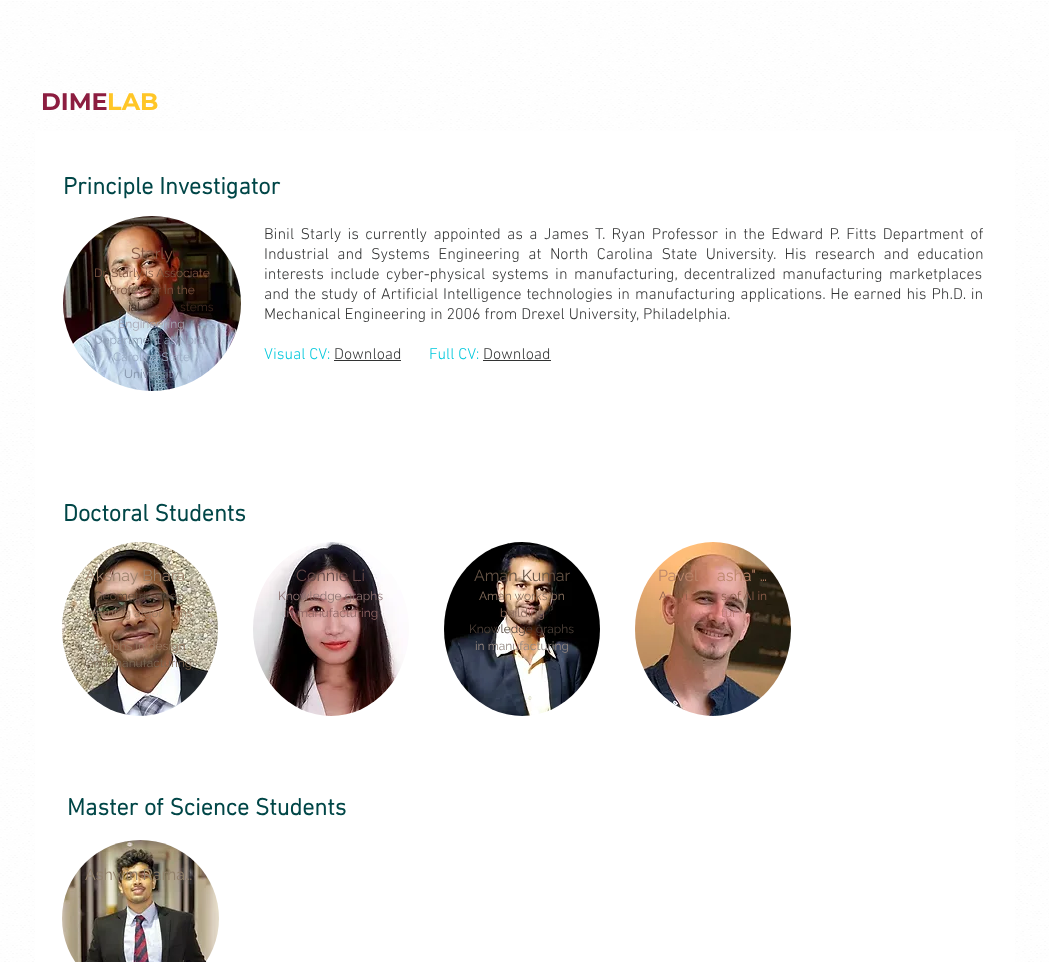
<svg xmlns="http://www.w3.org/2000/svg" width="1049" height="962" viewBox="0 0 1049 962">
  <style>
    .t1 { font: bold 24px Montserrat; fill: #8c1d40; }
    .t2 { font: bold 24px Montserrat; fill: #ffc627; }
    .t3 { font: bold 24px 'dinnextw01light'; fill: #004647; }
    .t4 { font: 16px Raleway; fill: #865844; }
    .t5 { font: 12px Raleway; fill: #7a5440; }
    .t6 { font: 12px Raleway; fill: #3f2a21; }
    .t7 { font: 12px Raleway; fill: #a6a5b2; }
    .t8 { font: 12px Raleway; fill: #95a3b8; }
    .t9 { font: 12px Raleway; fill: #9cadc4; }
    .t10 { font: 12px Raleway; fill: #8292a8; }
    .t11 { font: 300 16px 'dinnextw01light'; fill: #323333; }
    .t12 { font: 300 16px 'dinnextw01light'; fill: #00c8dc; }
    .t13 { font: 16px Raleway; fill: #9c816c; }
    .t14 { font: 12px Raleway; fill: #624c3d; }
    .t15 { font: 12px Raleway; fill: #987860; }
    .t16 { font: 12px Raleway; fill: #7c6754; }
    .t17 { font: 16px Raleway; fill: #634847; }
    .t18 { font: 12px Raleway; fill: #8c7170; }
    .t19 { font: 12px Raleway; fill: #73585b; }
    .t20 { font: 12px Raleway; fill: #916765; }
    .t21 { font: 16px Raleway; fill: #655345; }
    .t22 { font: 12px Raleway; fill: #8a7260; }
    .t23 { font: 12px Raleway; fill: #896a5d; }
    .t24 { font: 12px Raleway; fill: #4e4139; }
    .t25 { font: 12px Raleway; fill: #948882; }
    .t26 { font: 16px Raleway; fill: #bc866b; }
    .t27 { font: 12px Raleway; fill: #8b5c4a; }
    .t28 { font: 12px Raleway; fill: #b9786f; }
    .t29 { font: 16px Raleway; fill: #907f69; }
  </style>
  <rect width="100%" height="100%" fill="#fff"/>
  <image x="0" y="1" width="1049" height="961" href="images/1.png"/>
  <text x="41" y="110" class="t1">DIME</text>
  <text x="107" y="110" class="t2">LAB</text>
  <rect x="35" y="131" width="980" height="831" fill="#fff"/>
  <text x="63" y="194" class="t3">Principle Investigator</text>
  <image x="63" y="216" width="178" height="175" href="images/2.png"/>
  <text x="131" y="259" class="t4">Starly</text>
  <text x="94" y="277" class="t5">Dr. Starly is Associate</text>
  <text x="109" y="294" class="t5">Professor in the</text>
  <text x="89" y="311" class="t6">I</text>
  <text x="128" y="311" class="t6">ial</text>
  <text x="180" y="311" class="t6">stems</text>
  <text x="118" y="328" class="t7">Engineering</text>
  <text x="94" y="344" class="t8">Department at North</text>
  <text x="113" y="361" class="t9">Carolina State</text>
  <text x="124" y="378" class="t10">University</text>
  <text x="264" y="239" word-spacing="2.4" class="t11">Binil Starly is currently appointed as a James T. Ryan Professor in the Edward P. Fitts Department of</text>
  <text x="264" y="259" word-spacing="4.5" class="t11">Industrial and Systems Engineering at North Carolina State University. His research and education</text>
  <text x="264" y="279" word-spacing="2.5" class="t11">interests include cyber-physical systems in manufacturing, decentralized manufacturing marketplaces</text>
  <text x="264" y="299" word-spacing="1" class="t11">and the study of Artificial Intelligence technologies in manufacturing applications. He earned his Ph.D. in</text>
  <text x="264" y="319" class="t11">Mechanical Engineering in 2006 from Drexel University, Philadelphia.</text>
  <text x="264" y="359" class="t12">Visual CV:</text>
  <text x="334" y="359" class="t11">Download</text>
  <rect x="334" y="360" width="67" height="1" fill="#323333"/>
  <text x="429" y="359" class="t12">Full CV:</text>
  <text x="483" y="359" class="t11">Download</text>
  <rect x="483" y="360" width="68" height="1" fill="#323333"/>
  <text x="63" y="521" class="t3">Doctoral Students</text>
  <image x="62" y="542" width="156" height="174" href="images/3.png"/>
  <text x="85" y="581" class="t13">Akshay Bhara…</text>
  <text x="94" y="600" class="t14">Geometric deep</text>
  <text x="86" y="617" class="t15">learning algor</text>
  <text x="169" y="617" class="t15">hms</text>
  <text x="94" y="650" class="t15">graphs in design</text>
  <text x="87" y="667" class="t16">and manufacturing</text>
  <image x="253" y="542" width="156" height="174" href="images/4.png"/>
  <text x="296" y="581" class="t17">Connie Li</text>
  <text x="278" y="600" class="t18">Knowledge graphs</text>
  <text x="284" y="617" class="t19">in</text>
  <text x="297" y="617" class="t20">manufacturing</text>
  <image x="444" y="542" width="156" height="174" href="images/5.png"/>
  <text x="474" y="581" class="t21">Aman Kumar</text>
  <text x="479" y="600" class="t22">Aman works on</text>
  <text x="500" y="617" class="t23">building</text>
  <text x="469" y="633" class="t24">Knowledge graphs</text>
  <text x="475" y="650" class="t25">in manufacturing</text>
  <image x="635" y="542" width="156" height="174" href="images/6.png"/>
  <text x="658" y="581" class="t26">Pavel</text>
  <text x="717" y="581" class="t26">asha" …</text>
  <text x="659" y="600" class="t27">A</text>
  <text x="685" y="600" class="t27">i</text>
  <text x="721" y="600" class="t27">s of AI in</text>
  <text x="721" y="617" class="t28">tur</text>
  <text x="67" y="815" class="t3">Master of Science Students</text>
  <image x="62" y="840" width="157" height="122" href="images/7.png"/>
  <text x="85" y="880" class="t29">Ashwin Rama…</text>
</svg>
